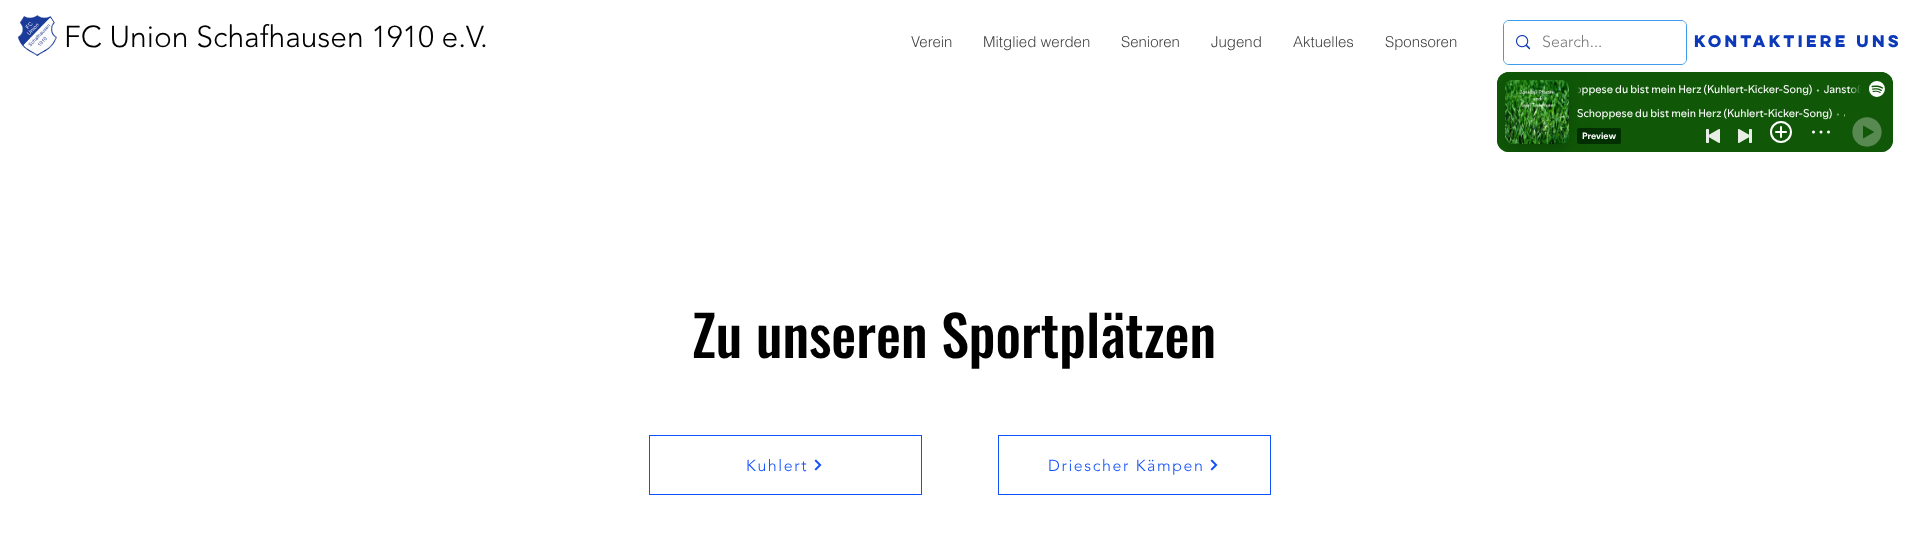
<svg xmlns="http://www.w3.org/2000/svg" width="1907" height="541" viewBox="0 0 1907 541">
  <style>
    .t1 { font: 300 30px 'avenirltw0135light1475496'; fill: #000; }
    .t2 { font: 300 15px helvetica; fill: #444; }
    .t3 { font: 300 16px 'avenirltw0135light1475496'; fill: #787878; }
    .t4 { font: bold 15px 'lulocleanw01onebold'; fill: #0b39b8; }
    .t5 { font: 500 56px Oswald; fill: #000; }
    .t6 { font: 300 16px 'avenirltw0135light1475496'; letter-spacing: 1.6px; fill: #1150fc; }
  </style>
  <rect width="100%" height="100%" fill="#fff"/>
  <image x="17" y="15" width="40" height="41" href="images/1.png"/>
  <text x="64" y="47" class="t1">FC Union Schafhausen 1910 e.V.</text>
  <text x="911" y="47" class="t2">Verein</text>
  <text x="983" y="47" class="t2">Mitglied werden</text>
  <text x="1121" y="47" class="t2">Senioren</text>
  <text x="1211" y="47" class="t2">Jugend</text>
  <text x="1293" y="47" class="t2">Aktuelles</text>
  <text x="1385" y="47" class="t2">Sponsoren</text>
  <rect x="1503.5" y="20.5" width="183" height="44" rx="5.5" fill="none" stroke="#3d9be9"/>
  <rect x="1504" y="21" width="182" height="43" rx="5" fill="#fff"/>
  <image x="1516" y="35" width="14" height="15" href="images/2.png"/>
  <text x="1542" y="47" class="t3">Search...</text>
  <text x="1694" y="47" class="t4">Kontaktiere uns</text>
  <image x="1497" y="72" width="396" height="80" href="images/3.png"/>
  <text x="692" y="358" class="t5">Zu unseren Sportplätzen</text>
  <rect x="649.5" y="435.5" width="272" height="59" fill="none" stroke="#1150fc"/>
  <text x="746" y="471" class="t6">Kuhlert</text>
  <image x="814" y="459" width="8" height="12" href="images/4.png"/>
  <rect x="998.5" y="435.5" width="272" height="59" fill="none" stroke="#1150fc"/>
  <text x="1048" y="471" class="t6">Driescher Kämpen</text>
  <image x="1210" y="459" width="8" height="12" href="images/4.png"/>
</svg>
